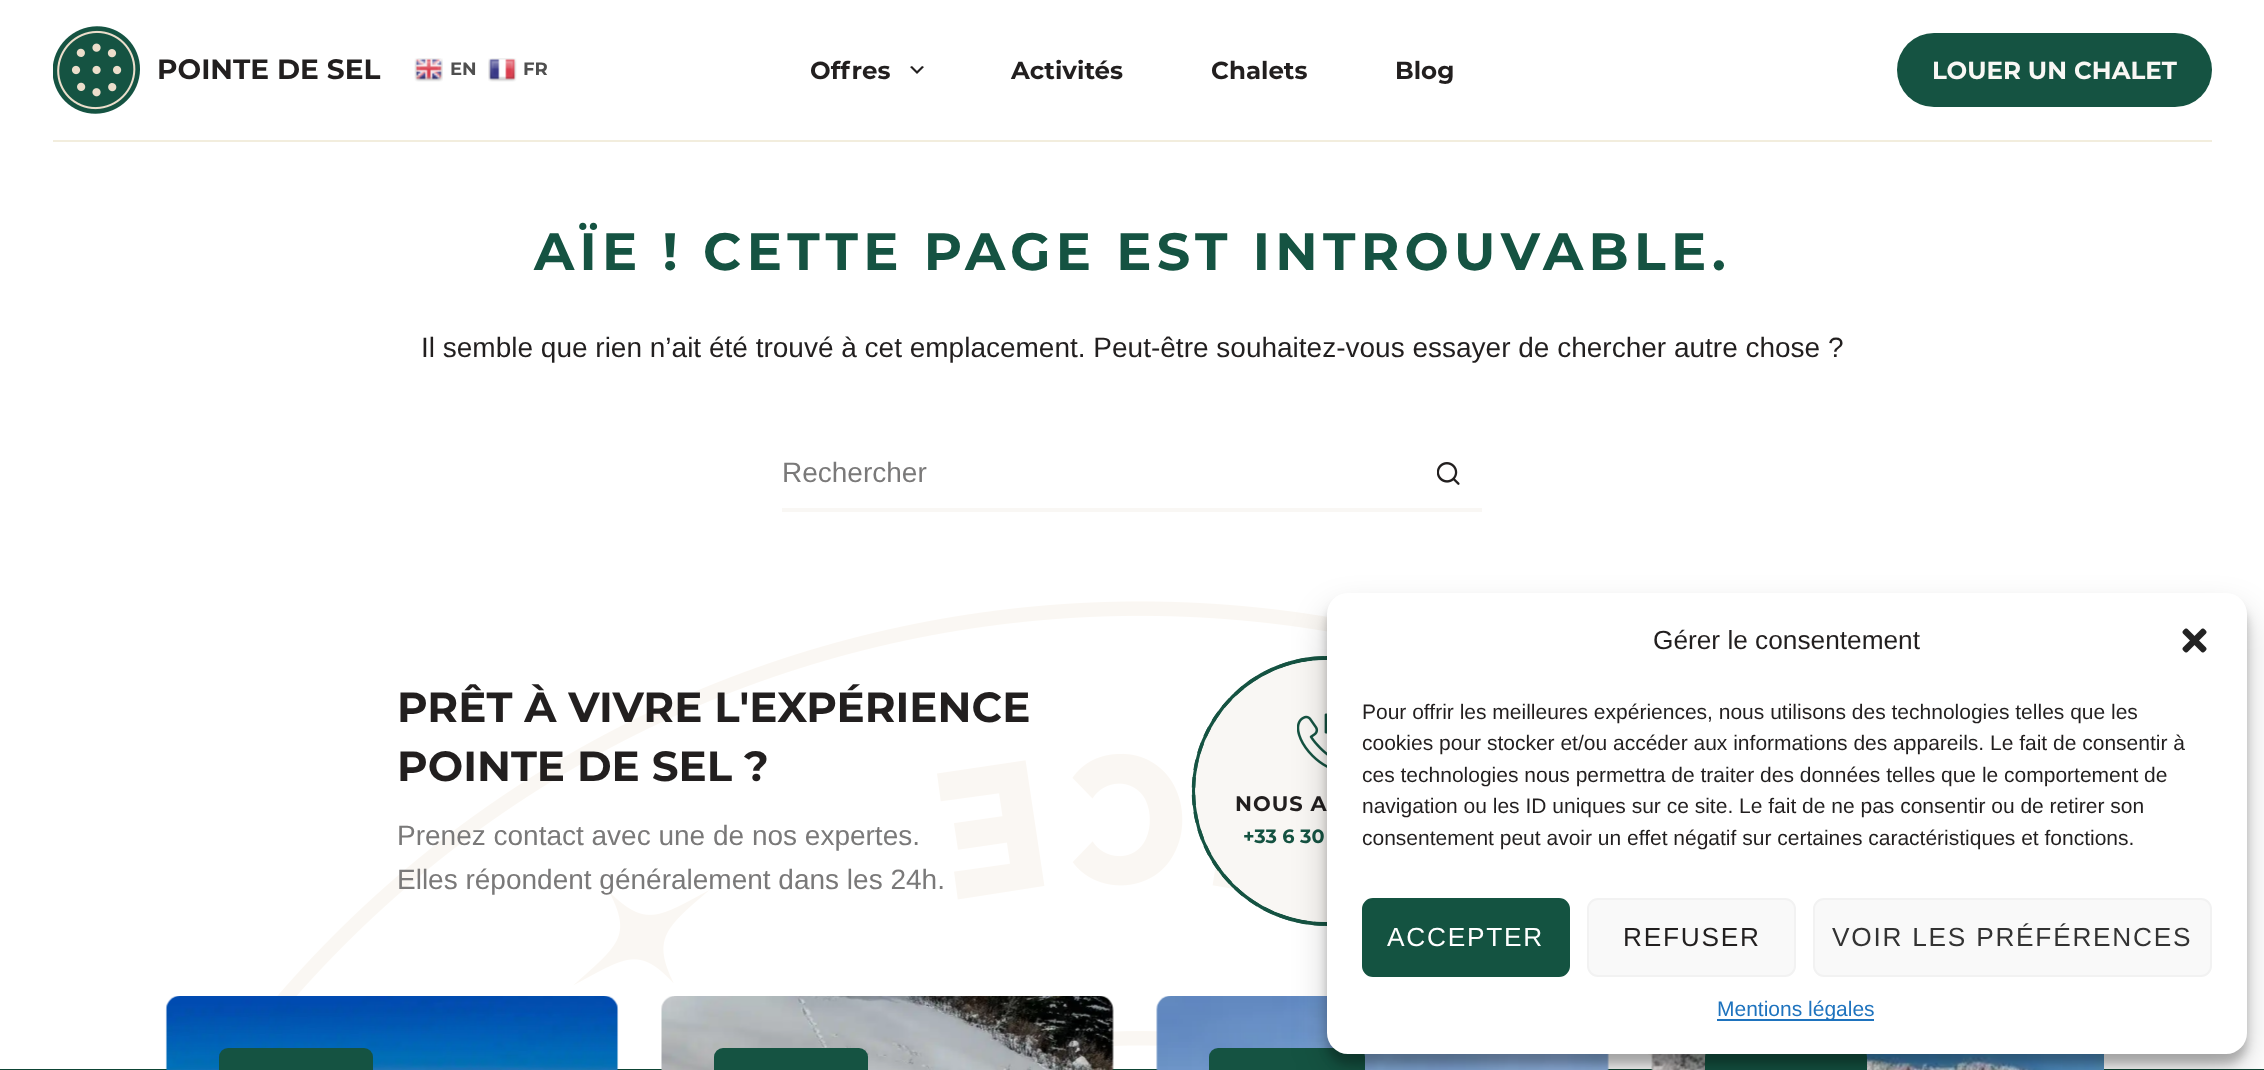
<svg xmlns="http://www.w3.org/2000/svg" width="2264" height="1070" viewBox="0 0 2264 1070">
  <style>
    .t1 { font: bold 28px Montserrat; fill: #221f1f; }
    .t2 { font: bold 18px Montserrat; fill: #4f4f4f; }
    .t3 { font: bold 24.5px Montserrat; fill: #221f1f; }
    .t4 { font: bold 24.5px Montserrat; fill: #f9f7f4; }
    .t5 { font: bold 52.5px Montserrat; letter-spacing: 5.25px; fill: #155342; }
    .t6 { font: 28px Liberation Sans; fill: #221f1f; }
    .t7 { font: 28px Liberation Sans; fill: #7a7979; }
    .t8 { font: bold 42px Montserrat; fill: #221f1f; }
    .t9 { font: bold 21px Montserrat; letter-spacing: 1px; fill: #221f1f; }
    .t10 { font: bold 19.25px Montserrat; fill: #155342; }
    .t11 { font: 26.25px Liberation Sans; fill: #221f1f; }
    .t12 { font: 21px Liberation Sans; fill: #221f1f; }
    .t13 { font: 26.25px Liberation Sans; letter-spacing: 1.75px; fill: #fff; }
    .t14 { font: 26.25px Liberation Sans; letter-spacing: 1.75px; fill: #221f1f; }
    .t15 { font: 26.25px Liberation Sans; letter-spacing: 1.75px; fill: #333; }
    .t16 { font: 21px Liberation Sans; fill: #1e73be; }
  </style>
  <rect width="100%" height="100%" fill="#fff"/>
  <rect x="53" y="140" width="2159" height="2" fill="#f2eddd"/>
  <image x="53" y="26" width="87" height="88" href="images/1.png"/>
  <text x="157" y="79" class="t1">POINTE DE SEL</text>
  <image x="414" y="58" width="29" height="24" href="images/2.png"/>
  <text x="450" y="75" class="t2">EN</text>
  <image x="488" y="58" width="29" height="24" href="images/3.png"/>
  <text x="523" y="75" class="t2">FR</text>
  <text x="810" y="79" class="t3">Offres</text>
  <image x="910" y="66" width="14" height="8" href="images/4.png"/>
  <text x="1011" y="79" class="t3">Activités</text>
  <text x="1211" y="79" class="t3">Chalets</text>
  <text x="1395" y="79" class="t3">Blog</text>
  <rect x="1897" y="33" width="315" height="74" rx="37" fill="#155342"/>
  <text x="1932" y="79" class="t4">LOUER UN CHALET</text>
  <text x="534" y="270" class="t5">AÏE ! CETTE PAGE EST INTROUVABLE.</text>
  <text x="421" y="357" class="t6">Il semble que rien n’ait été trouvé à cet emplacement. Peut-être souhaitez-vous essayer de chercher autre chose ?</text>
  <rect x="782" y="508" width="700" height="4" fill="#f9f7f4"/>
  <text x="782" y="482" class="t7">Rechercher</text>
  <image x="1437" y="462" width="23" height="23" href="images/5.png"/>
  <image x="277" y="601" width="1376" height="457" href="images/6.png"/>
  <text x="397" y="722" class="t8">PRÊT À VIVRE L'EXPÉRIENCE</text>
  <text x="397" y="781" class="t8">POINTE DE SEL ?</text>
  <text x="397" y="845" class="t7">Prenez contact avec une de nos expertes.</text>
  <text x="397" y="889" class="t7">Elles répondent généralement dans les 24h.</text>
  <rect x="1194" y="658" width="265" height="266" rx="132.5" fill="none" stroke="#155342" stroke-width="4"/>
  <rect x="1195" y="660" width="263" height="262" rx="131" fill="#f9f7f4"/>
  <image x="1297" y="713" width="30" height="55" href="images/7.png"/>
  <text x="1235" y="811" class="t9">NOUS A</text>
  <path d="M1326.5 658C1400 658 1459.5 717.5 1459.5 791C1459.5 864.5 1400 924 1326.5 924C1253 924 1193.5 864.5 1193.5 791C1193.5 717.5 1253 658 1326.5 658Z" fill="none" stroke="#155342" stroke-width="3.5" stroke-dasharray="10.5 7"/>
  <text x="1243" y="843" class="t10">+33 6 30</text>
  <rect x="0" y="1069" width="2264" height="1" fill="#0d4434"/>
  <image x="165" y="996" width="454" height="74" href="images/8.png"/>
  <rect x="219" y="1048" width="154" height="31" rx="9" fill="#155342"/>
  <image x="661" y="996" width="453" height="74" href="images/9.png"/>
  <rect x="714" y="1048" width="154" height="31" rx="9" fill="#155342"/>
  <image x="1156" y="996" width="453" height="74" href="images/10.png"/>
  <rect x="1209" y="1048" width="156" height="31" rx="9" fill="#155342"/>
  <image x="1651" y="1054" width="453" height="16" href="images/11.png"/>
  <rect x="1705" y="1048" width="162" height="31" rx="9" fill="#155342"/>
  <rect x="1327" y="604" width="920" height="460" rx="21" fill="#0000003b" filter="blur(5px)"/>
  <rect x="1327" y="611" width="920" height="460" rx="21" fill="#00000030" filter="blur(17.5px)"/>
  <rect x="1327" y="593" width="920" height="461" rx="21" fill="#fff"/>
  <text x="1653" y="649" class="t11">Gérer le consentement</text>
  <image x="2182" y="628" width="25" height="25" href="images/12.png"/>
  <text x="1362" y="719" class="t12">Pour offrir les meilleures expériences, nous utilisons des technologies telles que les</text>
  <text x="1362" y="750" class="t12">cookies pour stocker et/ou accéder aux informations des appareils. Le fait de consentir à</text>
  <text x="1362" y="782" class="t12">ces technologies nous permettra de traiter des données telles que le comportement de</text>
  <text x="1362" y="813" class="t12">navigation ou les ID uniques sur ce site. Le fait de ne pas consentir ou de retirer son</text>
  <text x="1362" y="845" class="t12">consentement peut avoir un effet négatif sur certaines caractéristiques et fonctions.</text>
  <rect x="1363" y="899" width="206" height="77" rx="10" fill="#145341" stroke="#145341" stroke-width="2"/>
  <text x="1387" y="946" class="t13">ACCEPTER</text>
  <rect x="1588" y="899" width="207" height="77" rx="10" fill="#f9f9f9" stroke="#f2f2f2" stroke-width="2"/>
  <text x="1623" y="946" class="t14">REFUSER</text>
  <rect x="1814" y="899" width="397" height="77" rx="10" fill="#f9f9f9" stroke="#f2f2f2" stroke-width="2"/>
  <text x="1832" y="946" class="t15">VOIR LES PRÉFÉRENCES</text>
  <rect x="1717" y="1019" width="157" height="2" fill="#1e73be"/>
  <text x="1717" y="1016" class="t16">Mentions légales</text>
</svg>
